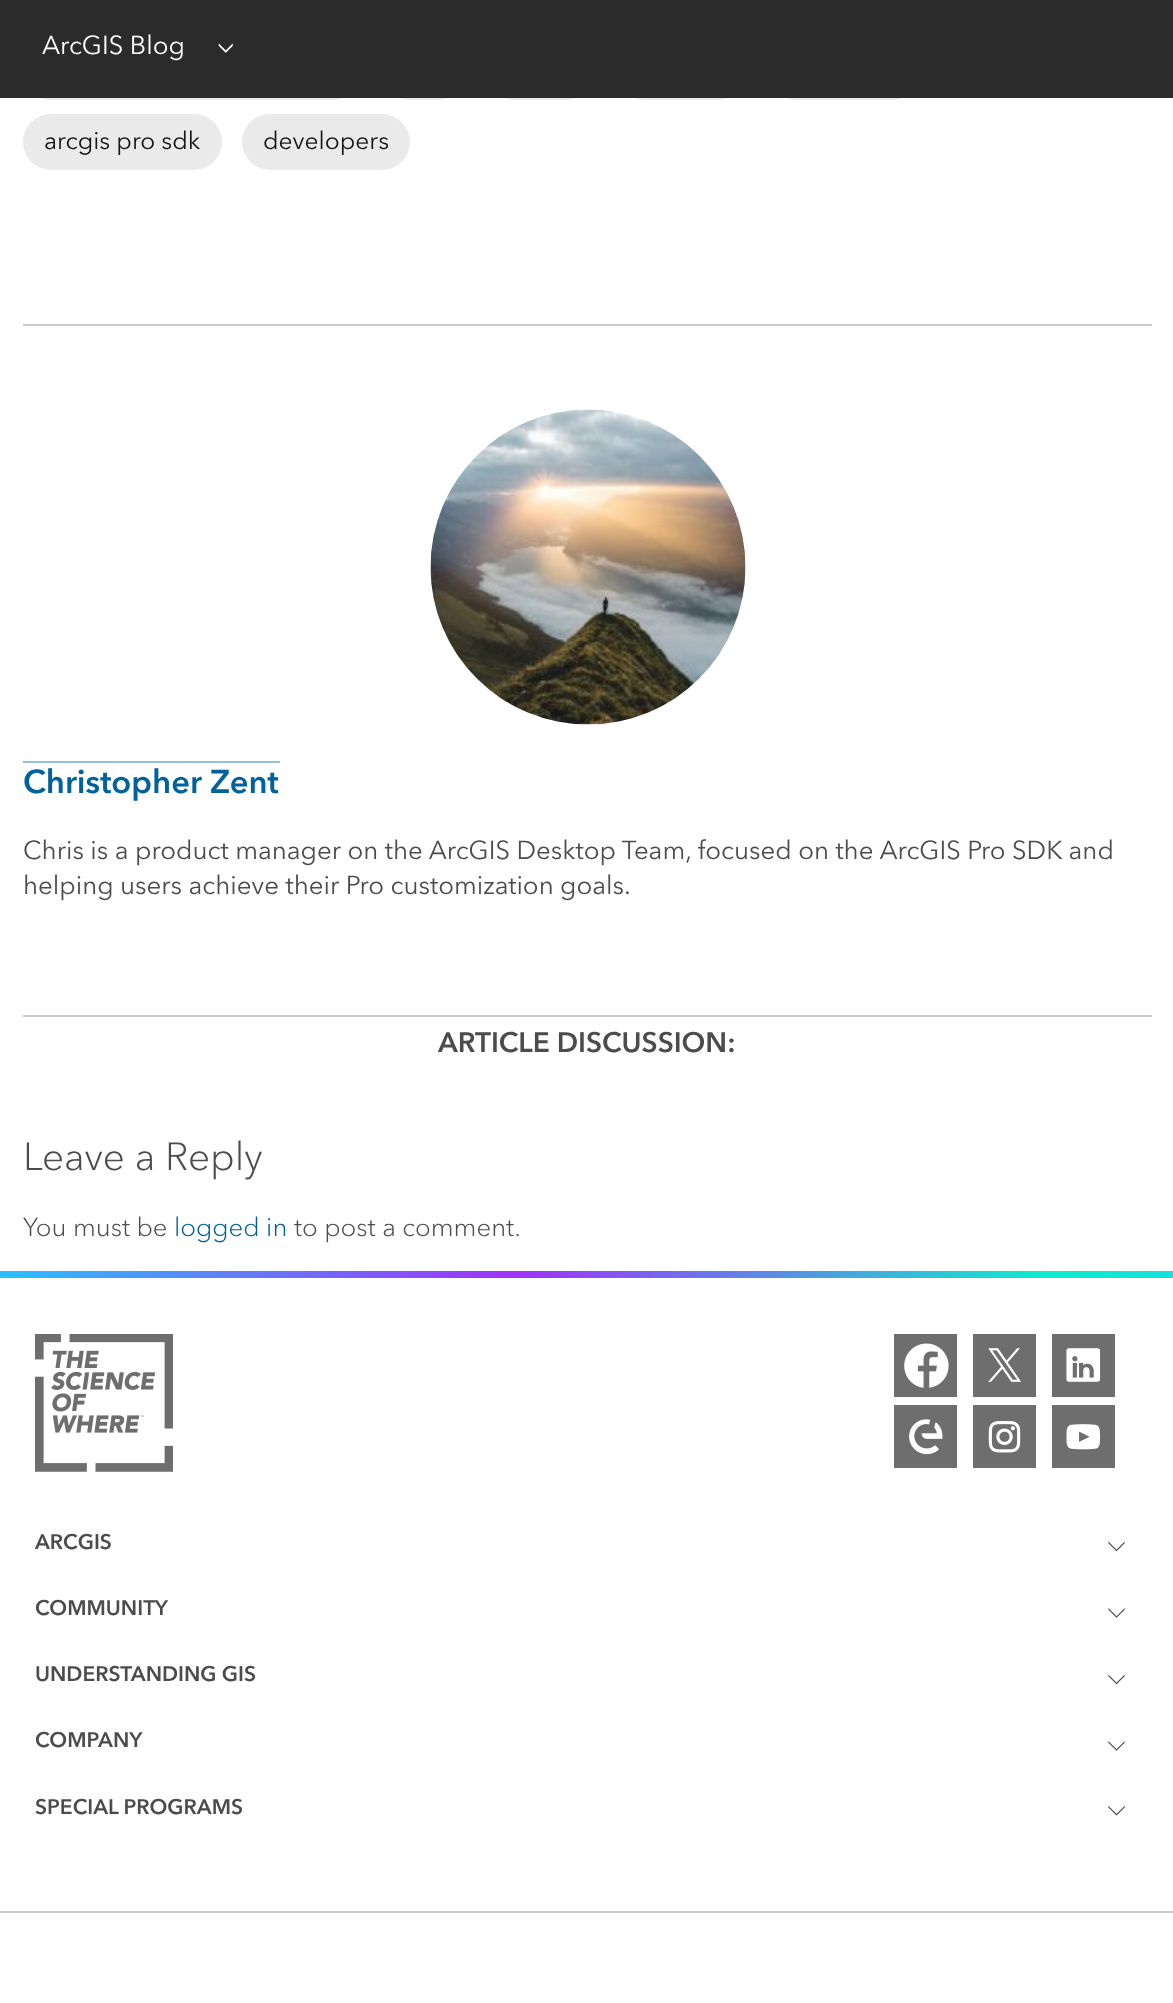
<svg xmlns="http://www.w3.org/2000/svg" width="1173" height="2003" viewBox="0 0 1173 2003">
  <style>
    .t1 { font: 25.85px Avenir Next; fill: #fff; }
    .t2 { font: 24.5px Avenir Next; fill: #151515; }
    .t3 { font: bold 32.75px Avenir Next; fill: #00619b; }
    .t4 { font: 25.85px Avenir Next; fill: #4c4c4c; }
    .t5 { font: bold 28px Avenir Next; fill: #4c4c4c; }
    .t6 { font: 300 39px Avenir Next; fill: #4c4c4c; }
    .t7 { font: 300 25.85px Avenir Next; fill: #4c4c4c; }
    .t8 { font: 300 25.85px Avenir Next; fill: #00619b; }
    .t9 { font: bold 21px 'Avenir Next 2'; fill: #4c4c4c; }
  </style>
  <defs>
    <linearGradient id="g1" gradientUnits="userSpaceOnUse" x1="0" y1="1274" x2="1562" y2="1274"><stop offset="0" stop-color="#29bfff"/><stop offset="0.33" stop-color="#a231ff"/><stop offset="0.67" stop-color="#0deccd"/><stop offset="1" stop-color="#29bfff"/></linearGradient>
  </defs>
  <rect width="100%" height="100%" fill="#fff"/>
  <rect x="23" y="44" width="339" height="56" rx="28" fill="#eaeaea"/>
  <rect x="382" y="44" width="85" height="56" rx="28" fill="#eaeaea"/>
  <rect x="487" y="44" width="108" height="56" rx="28" fill="#eaeaea"/>
  <rect x="616" y="44" width="131" height="56" rx="28" fill="#eaeaea"/>
  <rect x="768" y="44" width="153" height="56" rx="28" fill="#eaeaea"/>
  <rect x="0" y="0" width="1173" height="98" fill="#2b2b2b"/>
  <text x="42" y="54" class="t1">ArcGIS Blog</text>
  <image x="218" y="43" width="15" height="10" href="images/1.png"/>
  <rect x="23" y="114" width="199" height="56" rx="28" fill="#eaeaea"/>
  <text x="44" y="149" class="t2">arcgis pro sdk</text>
  <rect x="242" y="114" width="168" height="56" rx="28" fill="#eaeaea"/>
  <text x="263" y="149" class="t2">developers</text>
  <rect x="23" y="324" width="1129" height="2" fill="#cacaca"/>
  <rect x="23" y="1015" width="1129" height="2" fill="#cacaca"/>
  <image x="430" y="409" width="316" height="316" href="images/2.png"/>
  <rect x="23" y="761" width="257" height="2" fill="#99c0d7"/>
  <text x="23" y="793" class="t3">Christopher Zent</text>
  <text x="23" y="859" class="t4">Chris is a product manager on the ArcGIS Desktop Team, focused on the ArcGIS Pro SDK and</text>
  <text x="23" y="894" class="t4">helping users achieve their Pro customization goals.</text>
  <text x="438" y="1052" class="t5">ARTICLE DISCUSSION:</text>
  <text x="23" y="1170" class="t6">Leave a Reply</text>
  <text x="23" y="1236" class="t7">You must be</text>
  <text x="174" y="1236" class="t8">logged in</text>
  <text x="294" y="1236" class="t7">to post a comment.</text>
  <rect x="0" y="1271" width="1173" height="7" fill="url(#g1)"/>
  <image x="35" y="1334" width="138" height="138" href="images/3.png"/>
  <rect x="894" y="1334" width="63" height="63" fill="#6e6e6e"/>
  <image x="904" y="1343" width="45" height="45" href="images/4.png"/>
  <rect x="973" y="1334" width="63" height="63" fill="#6e6e6e"/>
  <image x="988" y="1348" width="33" height="34" href="images/5.png"/>
  <rect x="1052" y="1334" width="63" height="63" fill="#6e6e6e"/>
  <image x="1066" y="1348" width="35" height="34" href="images/6.png"/>
  <rect x="894" y="1405" width="63" height="63" fill="#6e6e6e"/>
  <image x="909" y="1419" width="34" height="36" href="images/7.png"/>
  <rect x="973" y="1405" width="63" height="63" fill="#6e6e6e"/>
  <image x="988" y="1421" width="33" height="32" href="images/8.png"/>
  <rect x="1052" y="1405" width="63" height="63" fill="#6e6e6e"/>
  <image x="1066" y="1424" width="35" height="26" href="images/9.png"/>
  <text x="35" y="1549" class="t9">ARCGIS</text>
  <image x="1108" y="1541" width="17" height="11" href="images/10.png"/>
  <text x="35" y="1615" class="t9">COMMUNITY</text>
  <image x="1108" y="1608" width="17" height="10" href="images/11.png"/>
  <text x="35" y="1681" class="t9">UNDERSTANDING GIS</text>
  <image x="1108" y="1674" width="17" height="11" href="images/10.png"/>
  <text x="35" y="1747" class="t9">COMPANY</text>
  <image x="1108" y="1741" width="17" height="10" href="images/11.png"/>
  <text x="35" y="1814" class="t9">SPECIAL PROGRAMS</text>
  <image x="1108" y="1805" width="17" height="11" href="images/12.png"/>
  <rect x="0" y="1911" width="1173" height="2" fill="#cacaca"/>
</svg>
